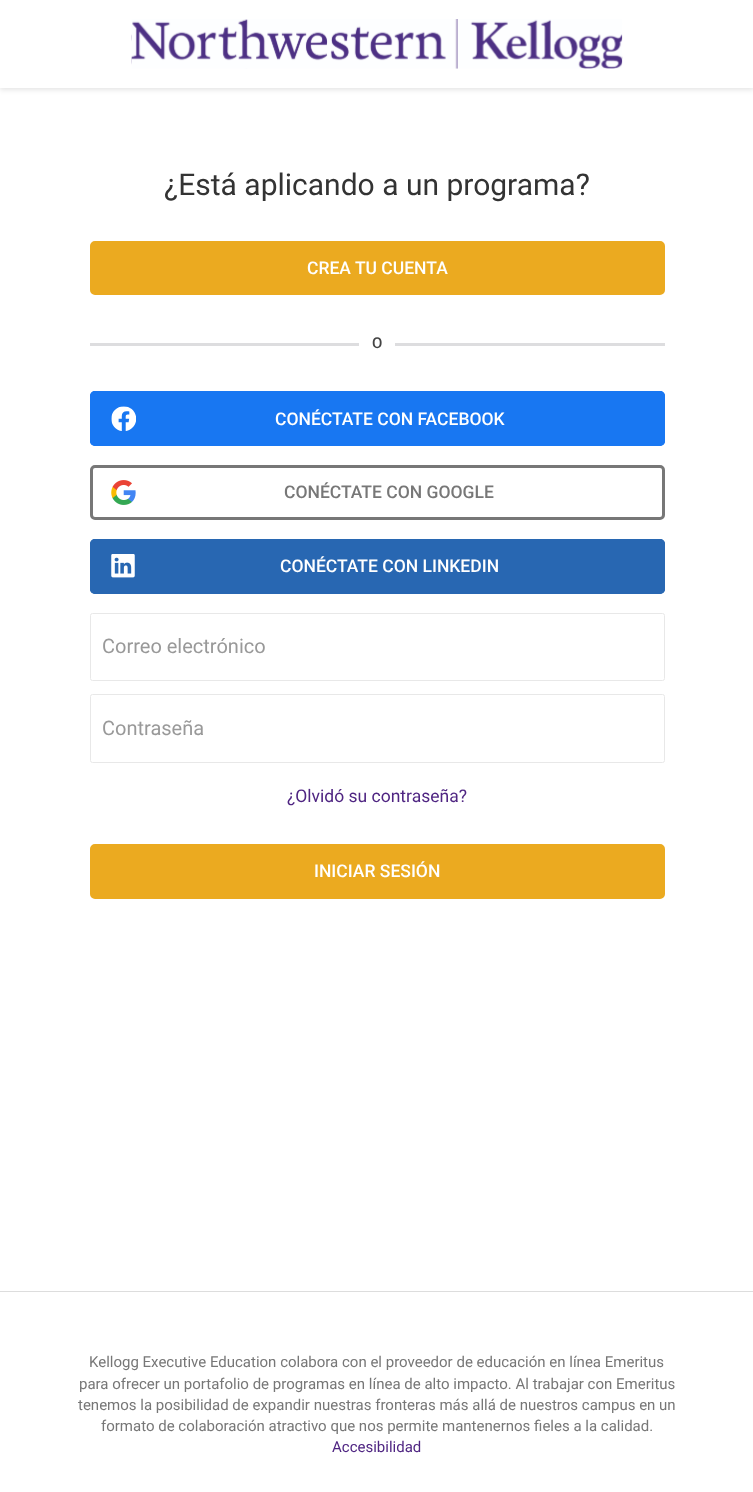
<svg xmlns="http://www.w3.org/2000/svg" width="753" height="1492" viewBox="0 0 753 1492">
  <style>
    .t1 { font: 30px Roboto; fill: #333; }
    .t2 { font: 500 17.5px Roboto; fill: #fff; }
    .t3 { font: 500 15px Roboto; fill: #444; }
    .t4 { font: 500 17.5px Roboto; fill: #777; }
    .t5 { font: 20px Roboto; fill: #999; }
    .t6 { font: 17.5px Roboto; fill: #4f2582; }
    .t7 { font: 15px Roboto; fill: #777; }
    .t8 { font: 15px Roboto; fill: #4f2582; }
  </style>
  <rect width="100%" height="100%" fill="#fff"/>
  <rect x="0" y="3" width="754" height="87" fill="#0000001a" filter="blur(2.5px)"/>
  <rect x="0" y="0" width="753" height="88" fill="#fff"/>
  <image x="131" y="19" width="492" height="50" href="images/1.png"/>
  <text x="164" y="195" class="t1">¿Está aplicando a un programa?</text>
  <rect x="91.5" y="242.5" width="572" height="51" rx="3.5" fill="#ebaa20" stroke="#ebaa20" stroke-width="3"/>
  <text x="307" y="274" class="t2">CREA TU CUENTA</text>
  <rect x="90" y="343" width="269" height="3" fill="#dddddf"/>
  <text x="372" y="348" class="t3">O</text>
  <rect x="395" y="343" width="270" height="3" fill="#dddddf"/>
  <rect x="90" y="391" width="575" height="55" rx="5" fill="#1877f2"/>
  <image x="111" y="406" width="25" height="25" href="images/2.png"/>
  <rect x="91.5" y="392.5" width="572" height="52" rx="3.5" fill="none" stroke="#1877f2" stroke-width="3"/>
  <text x="275" y="425" class="t2">CONÉCTATE CON FACEBOOK</text>
  <image x="111" y="480" width="25" height="25" href="images/3.png"/>
  <rect x="91.5" y="466.5" width="572" height="52" rx="3.5" fill="none" stroke="#777" stroke-width="3"/>
  <text x="284" y="498" class="t4">CONÉCTATE CON GOOGLE</text>
  <rect x="90" y="539" width="575" height="55" rx="5" fill="#2867b2"/>
  <image x="111" y="554" width="24" height="24" href="images/4.png"/>
  <rect x="91.5" y="540.5" width="572" height="52" rx="3.5" fill="none" stroke="#2867b2" stroke-width="3"/>
  <text x="280" y="572" class="t2">CONÉCTATE CON LINKEDIN</text>
  <rect x="90.5" y="613.5" width="574" height="67" rx="2" fill="none" stroke="#e8e8e8"/>
  <text x="102" y="653" class="t5">Correo electrónico</text>
  <rect x="90.5" y="694.5" width="574" height="68" rx="2" fill="none" stroke="#e8e8e8"/>
  <text x="102" y="735" class="t5">Contraseña</text>
  <text x="287" y="802" class="t6">¿Olvidó su contraseña?</text>
  <rect x="91.5" y="845.5" width="572" height="52" rx="3.5" fill="#ebaa20" stroke="#ebaa20" stroke-width="3"/>
  <text x="314" y="877" class="t2">INICIAR SESIÓN</text>
  <rect x="0" y="1291" width="753" height="1" fill="#ddd"/>
  <text x="89" y="1367" class="t7">Kellogg Executive Education colabora con el proveedor de educación en línea Emeritus</text>
  <text x="79" y="1389" class="t7">para ofrecer un portafolio de programas en línea de alto impacto. Al trabajar con Emeritus</text>
  <text x="78" y="1410" class="t7">tenemos la posibilidad de expandir nuestras fronteras más allá de nuestros campus en un</text>
  <text x="101" y="1431" class="t7">formato de colaboración atractivo que nos permite mantenernos fieles a la calidad.</text>
  <text x="332" y="1452" class="t8">Accesibilidad</text>
</svg>
